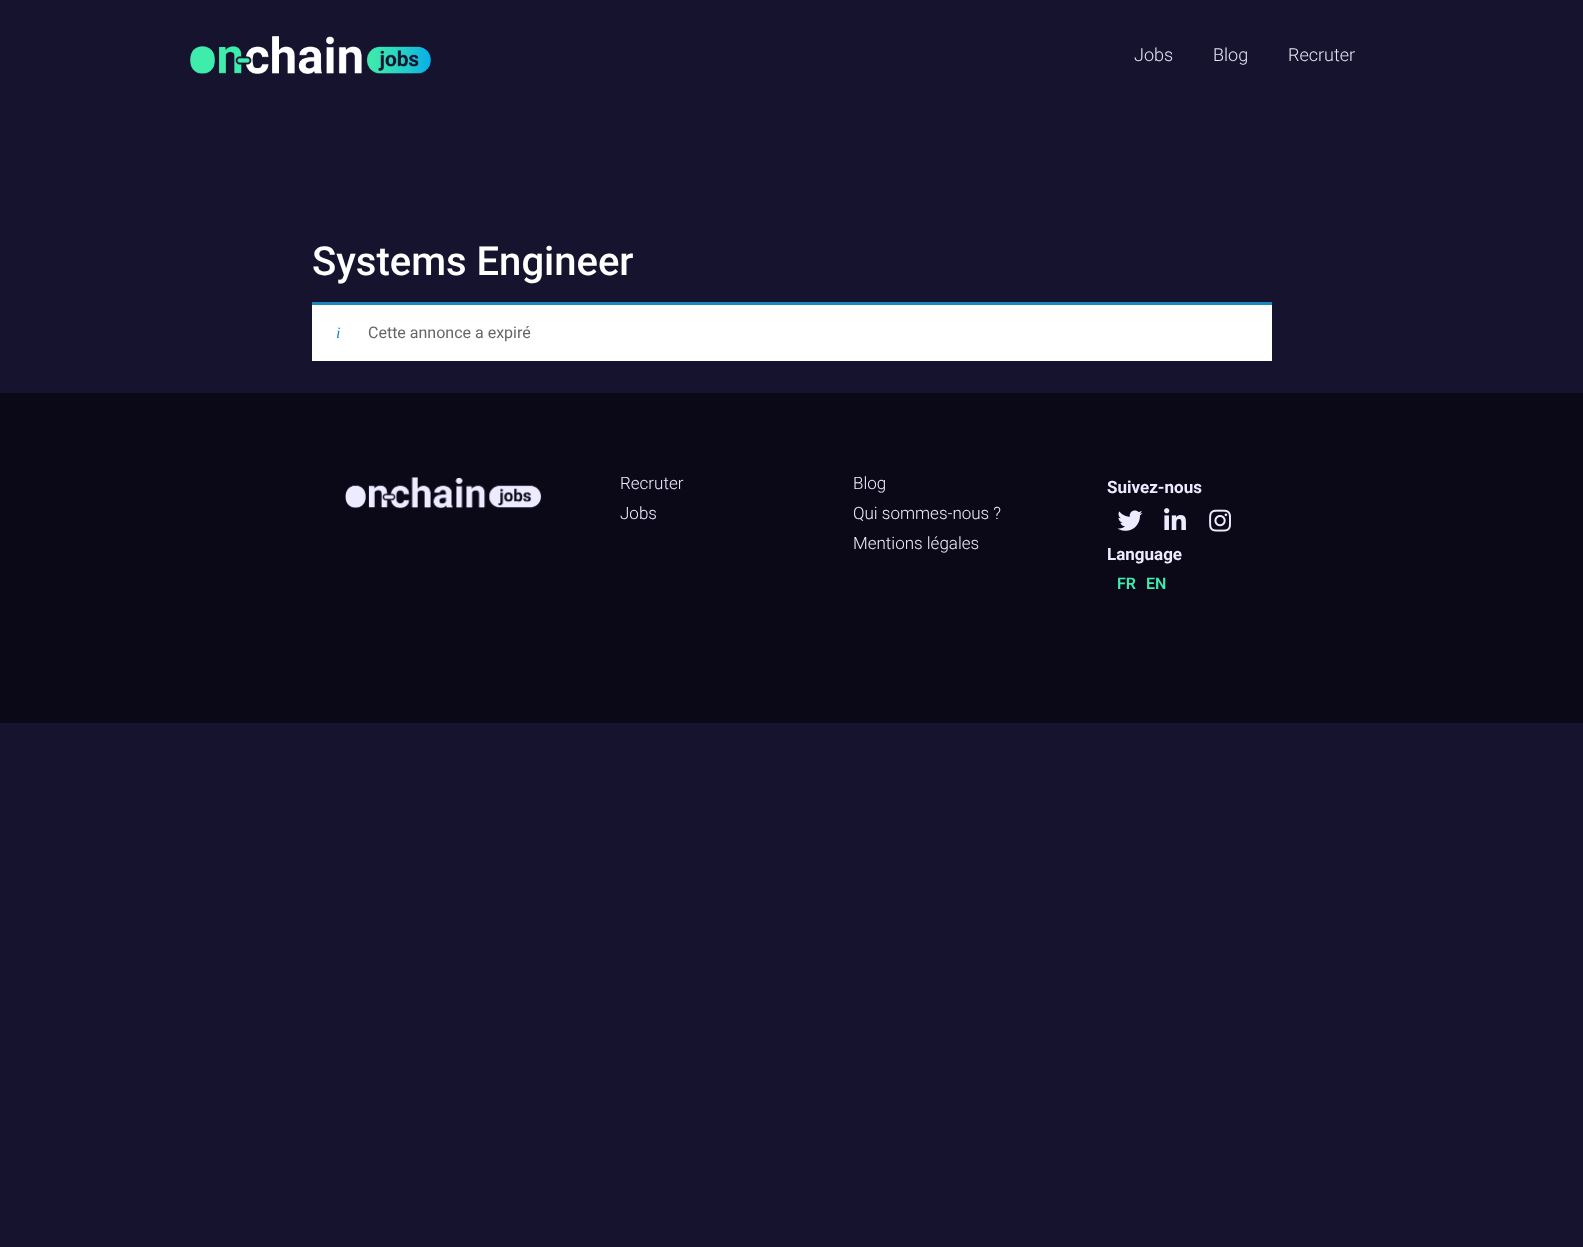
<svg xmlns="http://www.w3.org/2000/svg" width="1583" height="1247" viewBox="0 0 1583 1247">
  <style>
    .t1 { font: 300 18px Roboto; fill: #e6e4f4; }
    .t2 { font: 500 40px Roboto; fill: #fff; }
    .t3 { font: italic 16px Liberation Serif; fill: #1e85be; }
    .t4 { font: 16px Roboto; fill: #666; }
    .t5 { font: 300 17px Roboto; fill: #edebff; }
    .t6 { font: bold 17px Roboto; fill: #edebff; }
    .t7 { font: 600 16px Roboto; fill: #3eecac; }
  </style>
  <rect width="100%" height="100%" fill="#16132e"/>
  <image x="190" y="36" width="241" height="38" href="images/1.png"/>
  <text x="1134" y="61" class="t1">Jobs</text>
  <text x="1213" y="61" class="t1">Blog</text>
  <text x="1288" y="61" class="t1">Recruter</text>
  <text x="312" y="275" class="t2">Systems Engineer</text>
  <rect x="312" y="305" width="960" height="56" fill="#fff"/>
  <rect x="312" y="302" width="960" height="3" fill="#1e85be"/>
  <text x="336" y="338" class="t3">i</text>
  <text x="368" y="338" class="t4">Cette annonce a expiré</text>
  <rect x="0" y="393" width="1583" height="330" fill="#0b0918"/>
  <image x="345" y="477" width="197" height="32" href="images/2.png"/>
  <text x="620" y="489" class="t5">Recruter</text>
  <text x="620" y="519" class="t5">Jobs</text>
  <text x="853" y="489" class="t5">Blog</text>
  <text x="853" y="519" class="t5">Qui sommes-nous ?</text>
  <text x="853" y="549" class="t5">Mentions légales</text>
  <text x="1107" y="493" class="t6">Suivez-nous</text>
  <image x="1117" y="510" width="26" height="21" href="images/3.png"/>
  <image x="1164" y="508" width="22" height="22" href="images/4.png"/>
  <image x="1209" y="509" width="22" height="23" href="images/5.png"/>
  <text x="1107" y="560" class="t6">Language</text>
  <text x="1117" y="589" class="t7">FR</text>
  <text x="1146" y="589" class="t7">EN</text>
</svg>
